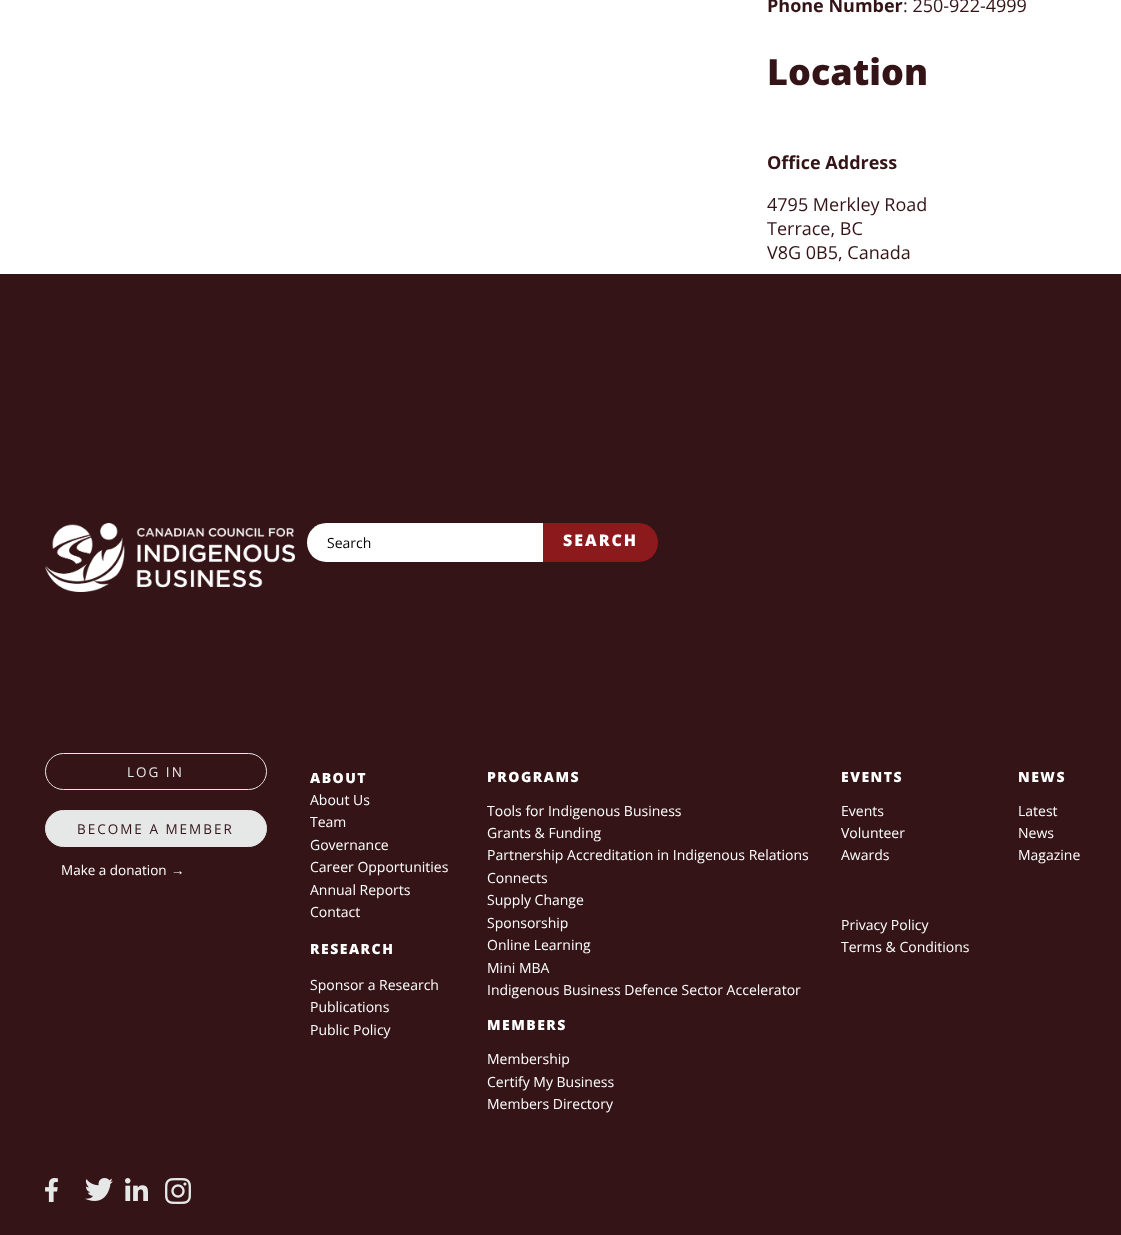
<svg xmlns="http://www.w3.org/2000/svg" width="1121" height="1235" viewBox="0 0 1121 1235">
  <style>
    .t1 { font: bold 18px Open Sans; fill: #341416; }
    .t2 { font: 18px Open Sans; fill: #341416; }
    .t3 { font: 800 36px Open Sans; fill: #341416; }
    .t4 { font: 14px Open Sans; fill: #000; }
    .t5 { font: 800 16px Open Sans; letter-spacing: 2px; fill: #fff; }
    .t6 { font: 13.5px Open Sans; letter-spacing: 2px; fill: #e6e7e7; }
    .t7 { font: 13.5px Open Sans; letter-spacing: 2px; fill: #341416; }
    .t8 { font: 13.5px Open Sans; fill: #fff; }
    .t9 { font: 13.5px Liberation Sans; fill: #fff; }
    .t10 { font: 800 14px Open Sans; letter-spacing: 1.5px; fill: #fff; }
    .t11 { font: 14px Open Sans; fill: #fff; }
  </style>
  <rect width="100%" height="100%" fill="#fff"/>
  <text x="767" y="12" class="t1">Phone Number</text>
  <text x="903" y="12" class="t2">: 250-922-4999</text>
  <text x="767" y="85" class="t3">Location</text>
  <text x="767" y="169" class="t1">Office Address</text>
  <text x="767" y="211" class="t2">4795 Merkley Road</text>
  <text x="767" y="235" class="t2">Terrace, BC</text>
  <text x="767" y="259" class="t2">V8G 0B5, Canada</text>
  <rect x="0" y="274" width="1121" height="961" fill="#341416"/>
  <image x="45" y="523" width="250" height="69" href="images/1.png"/>
  <path d="M326.5 523H543V562H326.5C315.5 562 307 553.5 307 542.5C307 531.5 315.5 523 326.5 523Z" fill="#fff"/>
  <text x="327" y="548" class="t4">Search</text>
  <path d="M543 523H638.5C649.5 523 658 531.5 658 542.5C658 553.5 649.5 562 638.5 562H543Z" fill="#8c191c"/>
  <text x="563" y="546" class="t5">SEARCH</text>
  <rect x="45.5" y="753.5" width="221" height="36" rx="18" fill="none" stroke="#e6e7e7"/>
  <text x="127" y="777" class="t6">LOG IN</text>
  <rect x="45.5" y="810.5" width="221" height="36" rx="18" fill="#e6e7e7" stroke="#e6e7e7"/>
  <text x="77" y="834" class="t7">BECOME A MEMBER</text>
  <text x="61" y="875" class="t8">Make a donation</text>
  <text x="171" y="875" class="t9">→</text>
  <text x="310" y="783" class="t10">ABOUT</text>
  <text x="310" y="805" class="t11">About Us</text>
  <text x="310" y="827" class="t11">Team</text>
  <text x="310" y="850" class="t11">Governance</text>
  <text x="310" y="872" class="t11">Career Opportunities</text>
  <text x="310" y="895" class="t11">Annual Reports</text>
  <text x="310" y="917" class="t11">Contact</text>
  <text x="310" y="954" class="t10">RESEARCH</text>
  <text x="310" y="990" class="t11">Sponsor a Research</text>
  <text x="310" y="1012" class="t11">Publications</text>
  <text x="310" y="1035" class="t11">Public Policy</text>
  <text x="487" y="782" class="t10">PROGRAMS</text>
  <text x="487" y="816" class="t11">Tools for Indigenous Business</text>
  <text x="487" y="838" class="t11">Grants &amp; Funding</text>
  <text x="487" y="860" class="t11">Partnership Accreditation in Indigenous Relations</text>
  <text x="487" y="883" class="t11">Connects</text>
  <text x="487" y="905" class="t11">Supply Change</text>
  <text x="487" y="928" class="t11">Sponsorship</text>
  <text x="487" y="950" class="t11">Online Learning</text>
  <text x="487" y="973" class="t11">Mini MBA</text>
  <text x="487" y="995" class="t11">Indigenous Business Defence Sector Accelerator</text>
  <text x="487" y="1030" class="t10">MEMBERS</text>
  <text x="487" y="1064" class="t11">Membership</text>
  <text x="487" y="1087" class="t11">Certify My Business</text>
  <text x="487" y="1109" class="t11">Members Directory</text>
  <text x="841" y="782" class="t10">EVENTS</text>
  <text x="841" y="816" class="t11">Events</text>
  <text x="841" y="838" class="t11">Volunteer</text>
  <text x="841" y="860" class="t11">Awards</text>
  <text x="841" y="930" class="t11">Privacy Policy</text>
  <text x="841" y="952" class="t11">Terms &amp; Conditions</text>
  <text x="1018" y="782" class="t10">NEWS</text>
  <text x="1018" y="816" class="t11">Latest</text>
  <text x="1018" y="838" class="t11">News</text>
  <text x="1018" y="860" class="t11">Magazine</text>
  <image x="45" y="1178" width="13" height="24" href="images/2.png"/>
  <image x="85" y="1178" width="28" height="23" href="images/3.png"/>
  <image x="125" y="1178" width="23" height="23" href="images/4.png"/>
  <image x="165" y="1178" width="26" height="26" href="images/5.png"/>
</svg>
